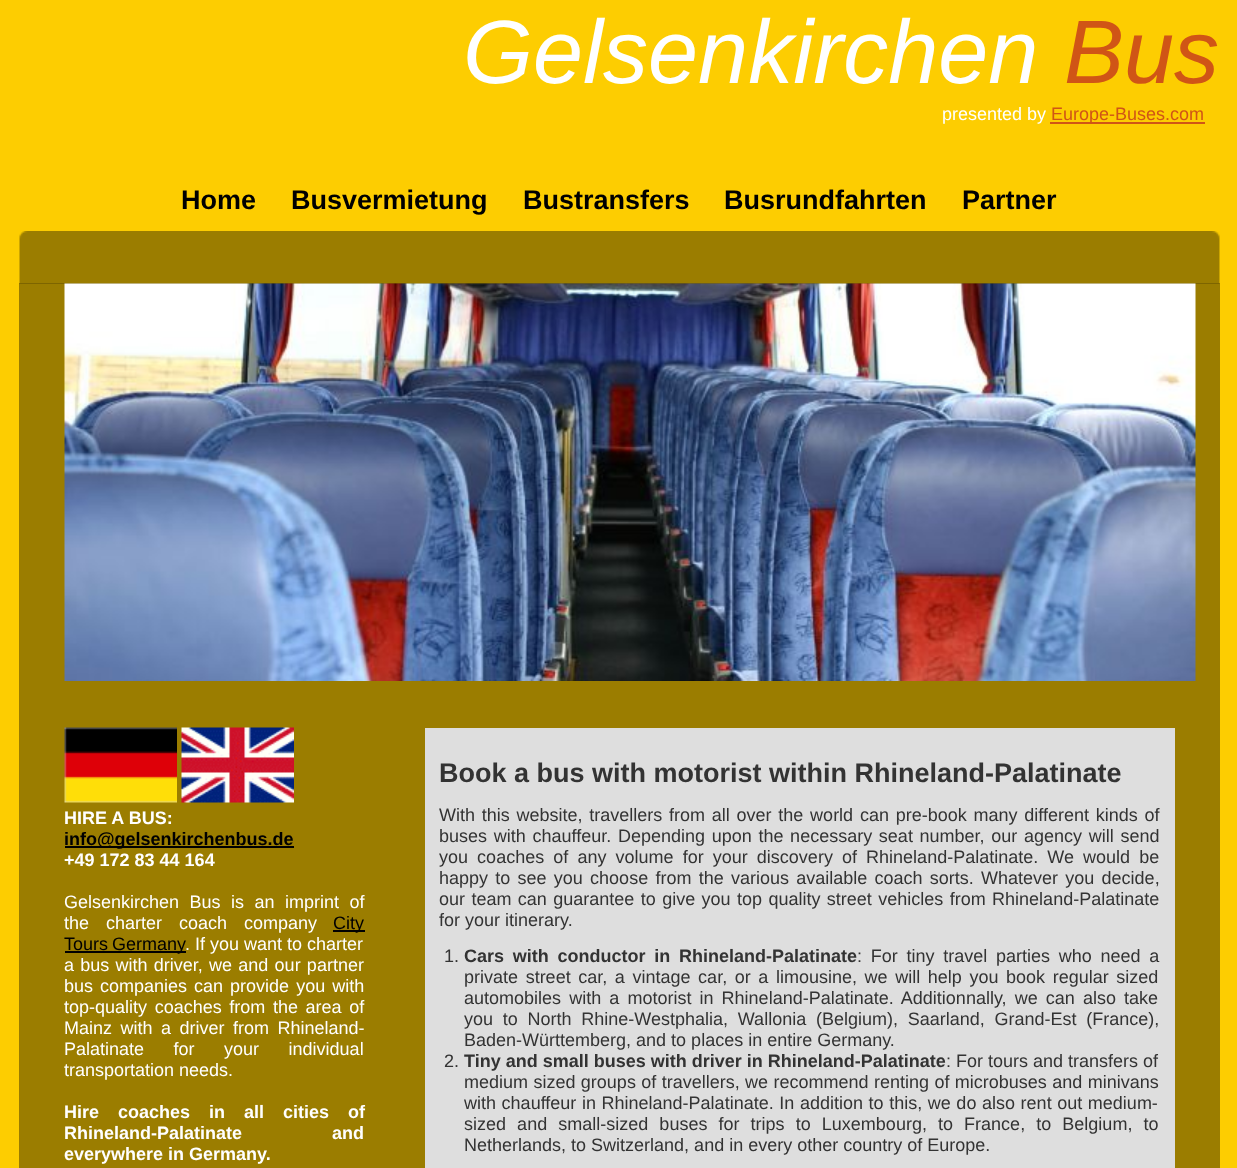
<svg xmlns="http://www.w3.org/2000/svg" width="1237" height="1168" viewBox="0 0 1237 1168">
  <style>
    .t1 { font: italic 90px Liberation Sans; fill: #fff; }
    .t2 { font: italic 90px Liberation Sans; fill: #d05516; }
    .t3 { font: 18px Liberation Sans; fill: #fff; }
    .t4 { font: 18px Liberation Sans; fill: #d05516; }
    .t5 { font: bold 27px Liberation Sans; fill: #000; }
    .t6 { font: bold 18px Liberation Sans; fill: #fff; }
    .t7 { font: bold 18px Liberation Sans; fill: #000; }
    .t8 { font: 18px Liberation Sans; fill: #000; }
    .t9 { font: bold 27px Liberation Sans; fill: #333; }
    .t10 { font: 18px Liberation Sans; fill: #333; }
    .t11 { font: bold 18px Liberation Sans; fill: #333; }
  </style>
  <rect width="100%" height="100%" fill="#fdcd01"/>
  <text x="463" y="83" class="t1">Gelsenkirchen</text>
  <text x="1064" y="83" class="t2">Bus</text>
  <text x="942" y="120" class="t3">presented by</text>
  <rect x="1050" y="122" width="155" height="2" fill="#d05516"/>
  <text x="1051" y="120" class="t4">Europe-Buses.com</text>
  <text x="181" y="209" class="t5">Home</text>
  <text x="291" y="209" class="t5">Busvermietung</text>
  <text x="523" y="209" class="t5">Bustransfers</text>
  <text x="724" y="209" class="t5">Busrundfahrten</text>
  <text x="962" y="209" class="t5">Partner</text>
  <image x="19" y="231" width="1201" height="53" href="images/1.png"/>
  <rect x="19" y="283" width="1201" height="885" fill="#00000063"/>
  <image x="64" y="283" width="1132" height="398" href="images/2.png"/>
  <image x="64" y="727" width="113" height="76" href="images/3.png"/>
  <image x="181" y="727" width="113" height="76" href="images/4.png"/>
  <text x="64" y="824" class="t6">HIRE A BUS:</text>
  <rect x="65" y="846" width="229" height="2" fill="#000"/>
  <text x="64" y="845" class="t7">info@gelsenkirchenbus.de</text>
  <text x="64" y="866" class="t6">+49 172 83 44 164</text>
  <text x="64" y="908" word-spacing="5.5" class="t3">Gelsenkirchen Bus is an imprint of</text>
  <text x="64" y="929" word-spacing="12" class="t3">the charter coach company</text>
  <rect x="333" y="930" width="32" height="2" fill="#000"/>
  <text x="333" y="929" class="t8">City</text>
  <rect x="65" y="951" width="121" height="2" fill="#000"/>
  <text x="64" y="950" word-spacing="-1" class="t8">Tours Germany</text>
  <text x="185" y="950" class="t3">. If you want to charter</text>
  <text x="64" y="971" word-spacing="1.25" class="t3">a bus with driver, we and our partner</text>
  <text x="64" y="992" word-spacing="2" class="t3">bus companies can provide you with</text>
  <text x="64" y="1013" word-spacing="2.6" class="t3">top-quality coaches from the area of</text>
  <text x="64" y="1034" word-spacing="3.5" class="t3">Mainz with a driver from Rhineland-</text>
  <text x="64" y="1055" word-spacing="24.5" class="t3">Palatinate for your individual</text>
  <text x="64" y="1076" class="t3">transportation needs.</text>
  <text x="64" y="1118" word-spacing="14" class="t6">Hire coaches in all cities of</text>
  <text x="64" y="1139" word-spacing="85" class="t6">Rhineland-Palatinate and</text>
  <text x="64" y="1160" class="t6">everywhere in Germany.</text>
  <rect x="425" y="728" width="750" height="440" fill="#dedede"/>
  <text x="439" y="782" class="t9">Book a bus with motorist within Rhineland-Palatinate</text>
  <text x="439" y="821" word-spacing="1.75" class="t10">With this website, travellers from all over the world can pre-book many different kinds of</text>
  <text x="439" y="842" word-spacing="1.7" class="t10">buses with chauffeur. Depending upon the necessary seat number, our agency will send</text>
  <text x="439" y="863" word-spacing="4.1" class="t10">you coaches of any volume for your discovery of Rhineland-Palatinate. We would be</text>
  <text x="439" y="884" word-spacing="2.25" class="t10">happy to see you choose from the various available coach sorts. Whatever you decide,</text>
  <text x="439" y="905" word-spacing="1.4" class="t10">our team can guarantee to give you top quality street vehicles from Rhineland-Palatinate</text>
  <text x="439" y="926" class="t10">for your itinerary.</text>
  <text x="444" y="962" class="t10">1.</text>
  <text x="464" y="962" word-spacing="3.75" class="t11">Cars with conductor in Rhineland-Palatinate</text>
  <text x="857" y="962" word-spacing="3.75" class="t10">: For tiny travel parties who need a</text>
  <text x="464" y="983" word-spacing="2.6" class="t10">private street car, a vintage car, or a limousine, we will help you book regular sized</text>
  <text x="464" y="1004" word-spacing="3.1" class="t10">automobiles with a motorist in Rhineland-Palatinate. Additionnally, we can also take</text>
  <text x="464" y="1025" word-spacing="4.75" class="t10">you to North Rhine-Westphalia, Wallonia (Belgium), Saarland, Grand-Est (France),</text>
  <text x="464" y="1046" class="t10">Baden-Württemberg, and to places in entire Germany.</text>
  <text x="444" y="1067" class="t10">2.</text>
  <text x="464" y="1067" class="t11">Tiny and small buses with driver in Rhineland-Palatinate</text>
  <text x="946" y="1067" class="t10">: For tours and transfers of</text>
  <text x="464" y="1088" word-spacing="0.4" class="t10">medium sized groups of travellers, we recommend renting of microbuses and minivans</text>
  <text x="464" y="1109" word-spacing="0.6" class="t10">with chauffeur in Rhineland-Palatinate. In addition to this, we do also rent out medium-</text>
  <text x="464" y="1130" word-spacing="6.1" class="t10">sized and small-sized buses for trips to Luxembourg, to France, to Belgium, to</text>
  <text x="464" y="1151" class="t10">Netherlands, to Switzerland, and in every other country of Europe.</text>
</svg>
